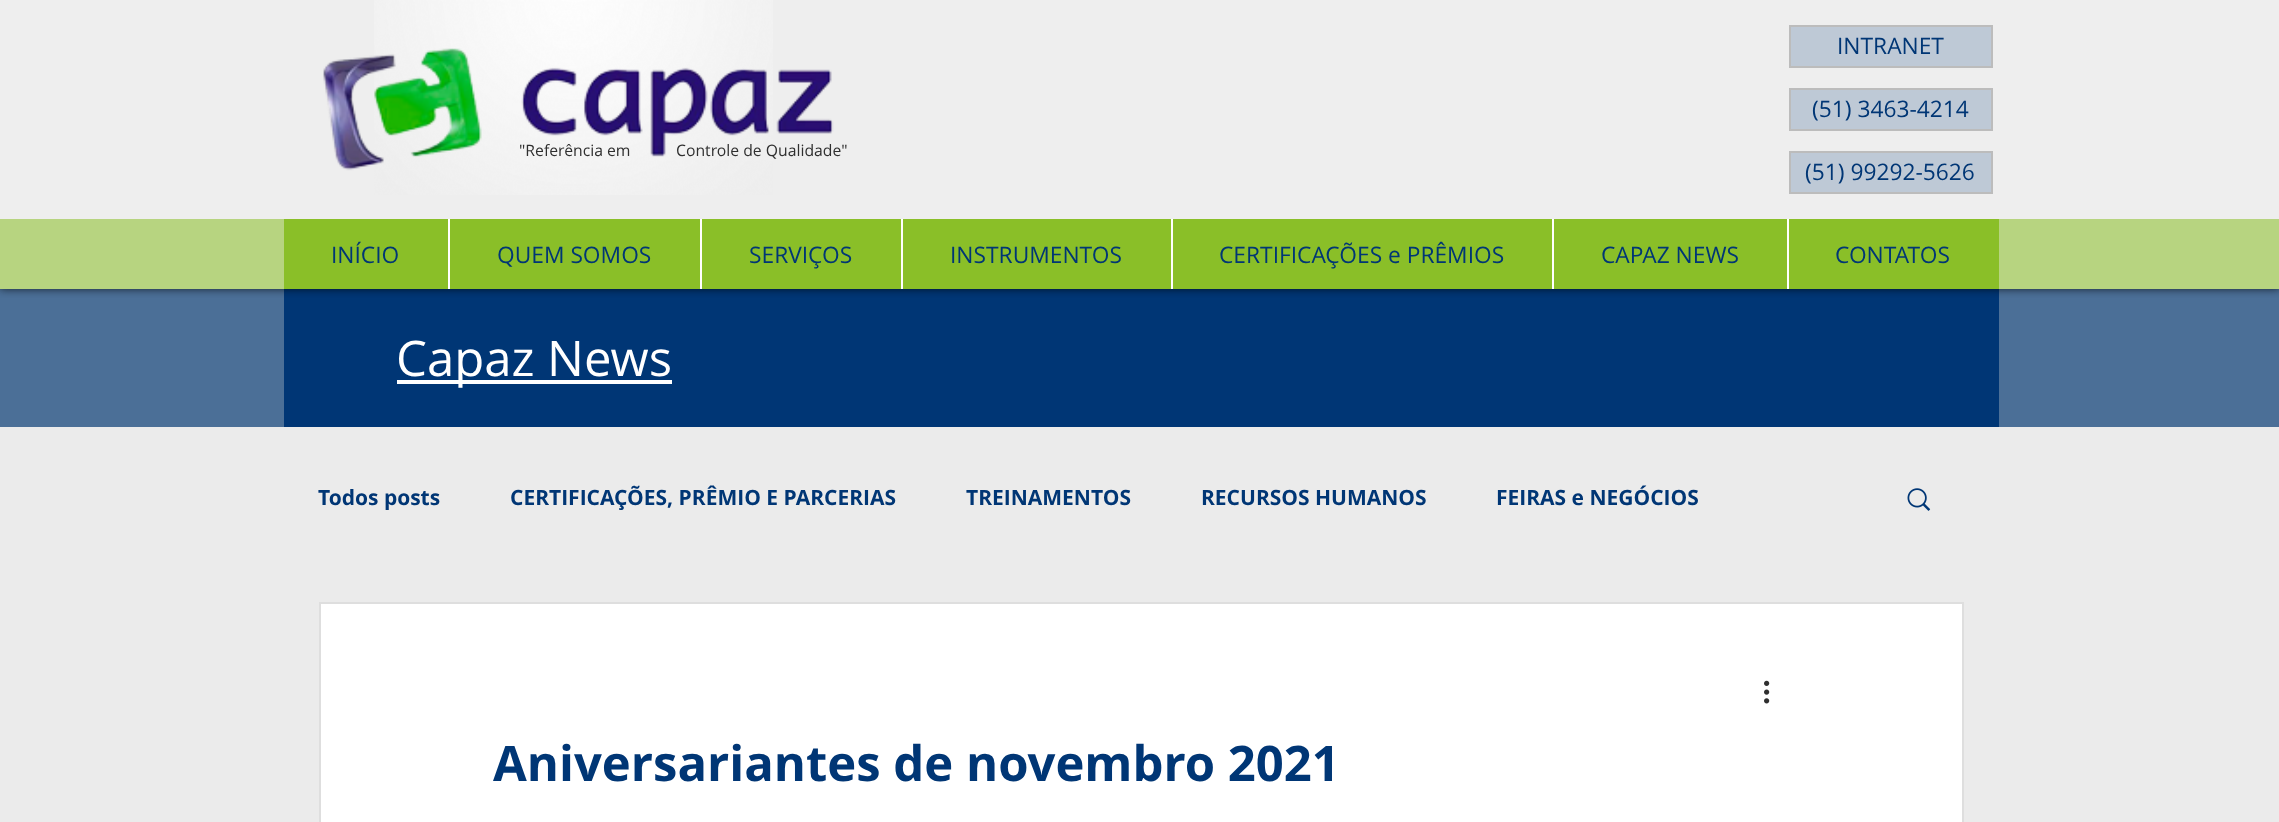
<svg xmlns="http://www.w3.org/2000/svg" width="2279" height="822" viewBox="0 0 2279 822">
  <style>
    .t1 { font: 22.75px Open Sans; fill: #003675; }
    .t2 { font: 15.75px Open Sans; fill: #2f2f2f; }
    .t3 { font: 49px Open Sans; fill: #fff; }
    .t4 { font: bold 21px Open Sans; fill: #003675; }
    .t5 { font: bold 49px Open Sans; fill: #003675; }
  </style>
  <defs>
    <clipPath id="clip1"><rect x="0" y="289" width="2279" height="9"/></clipPath>
  </defs>
  <rect width="100%" height="100%" fill="#ebebeb"/>
  <rect x="0" y="289" width="2279" height="138" fill="#4b6f97"/>
  <rect x="284" y="289" width="1715" height="138" fill="#003675"/>
  <g clip-path="url(#clip1)">
    <rect x="0" y="0" width="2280" height="289" fill="#000000b3" filter="blur(4.5px)"/>
  </g>
  <rect x="0" y="0" width="2279" height="219" fill="#ffffff26"/>
  <image x="374" y="0" width="399" height="195" href="images/1.png"/>
  <rect x="1790" y="26" width="202" height="41" fill="#bec9d6" stroke="#bcbcbc" stroke-width="2"/>
  <text x="1837" y="54" class="t1">INTRANET</text>
  <rect x="1790" y="89" width="202" height="41" fill="#bec9d6" stroke="#bcbcbc" stroke-width="2"/>
  <text x="1812" y="117" class="t1">(51) 3463-4214</text>
  <rect x="1790" y="152" width="202" height="41" fill="#bec9d6" stroke="#bcbcbc" stroke-width="2"/>
  <text x="1805" y="180" class="t1">(51) 99292-5626</text>
  <image x="323" y="48" width="159" height="123" href="images/2.png"/>
  <image x="521" y="67" width="313" height="90" href="images/3.png"/>
  <text x="519" y="156" class="t2">"Referência em</text>
  <text x="676" y="156" class="t2">Controle de Qualidade"</text>
  <rect x="0" y="219" width="2279" height="70" fill="#b7d480"/>
  <rect x="284" y="219" width="1715" height="70" fill="#8abf28"/>
  <text x="331" y="263" class="t1">INÍCIO</text>
  <rect x="448" y="219" width="2" height="70" fill="#fff"/>
  <text x="497" y="263" class="t1">QUEM SOMOS</text>
  <rect x="700" y="219" width="2" height="70" fill="#fff"/>
  <text x="749" y="263" class="t1">SERVIÇOS</text>
  <rect x="901" y="219" width="2" height="70" fill="#fff"/>
  <text x="950" y="263" class="t1">INSTRUMENTOS</text>
  <rect x="1171" y="219" width="2" height="70" fill="#fff"/>
  <text x="1219" y="263" class="t1">CERTIFICAÇÕES e PRÊMIOS</text>
  <rect x="1552" y="219" width="2" height="70" fill="#fff"/>
  <text x="1601" y="263" class="t1">CAPAZ NEWS</text>
  <rect x="1787" y="219" width="2" height="70" fill="#fff"/>
  <text x="1835" y="263" class="t1">CONTATOS</text>
  <rect x="397" y="380" width="275" height="4" fill="#fff"/>
  <text x="396" y="376" class="t3">Capaz News</text>
  <text x="318" y="505" class="t4">Todos posts</text>
  <text x="510" y="505" class="t4">CERTIFICAÇÕES, PRÊMIO E PARCERIAS</text>
  <text x="966" y="505" class="t4">TREINAMENTOS</text>
  <text x="1201" y="505" class="t4">RECURSOS HUMANOS</text>
  <text x="1496" y="505" class="t4">FEIRAS e NEGÓCIOS</text>
  <image x="1907" y="488" width="24" height="23" href="images/4.png"/>
  <rect x="320" y="603" width="1643" height="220" fill="#fff" stroke="#dedede" stroke-width="2"/>
  <image x="1764" y="680" width="6" height="24" href="images/5.png"/>
  <text x="493" y="781" class="t5">Aniversariantes de novembro 2021</text>
</svg>
